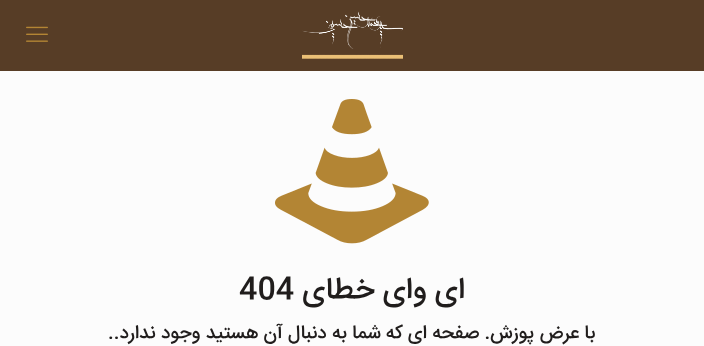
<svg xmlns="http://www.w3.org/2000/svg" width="704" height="346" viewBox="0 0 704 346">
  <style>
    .t1 { font: 500 30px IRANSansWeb; direction: rtl; fill: #201d1c; }
    .t2 { font: 500 30px IRANSansWeb; fill: #201d1c; }
    .t3 { font: 500 19px IRANSansWeb; direction: rtl; fill: #201d1c; }
  </style>
  <rect width="100%" height="100%" fill="#fcfcfc"/>
  <rect x="0" y="0" width="704" height="71" fill="#573d26"/>
  <image x="302" y="11" width="101" height="48" href="images/1.png"/>
  <image x="26" y="26" width="22" height="16" href="images/2.png"/>
  <image x="275" y="99" width="154" height="145" href="images/3.png"/>
  <text x="465" y="298" class="t1">ای وای خطای</text>
  <text x="239" y="298" class="t2">404</text>
  <text x="595" y="338" class="t3">با عرض پوزش. صفحه ای که شما به دنبال آن هستید وجود ندارد..</text>
</svg>
